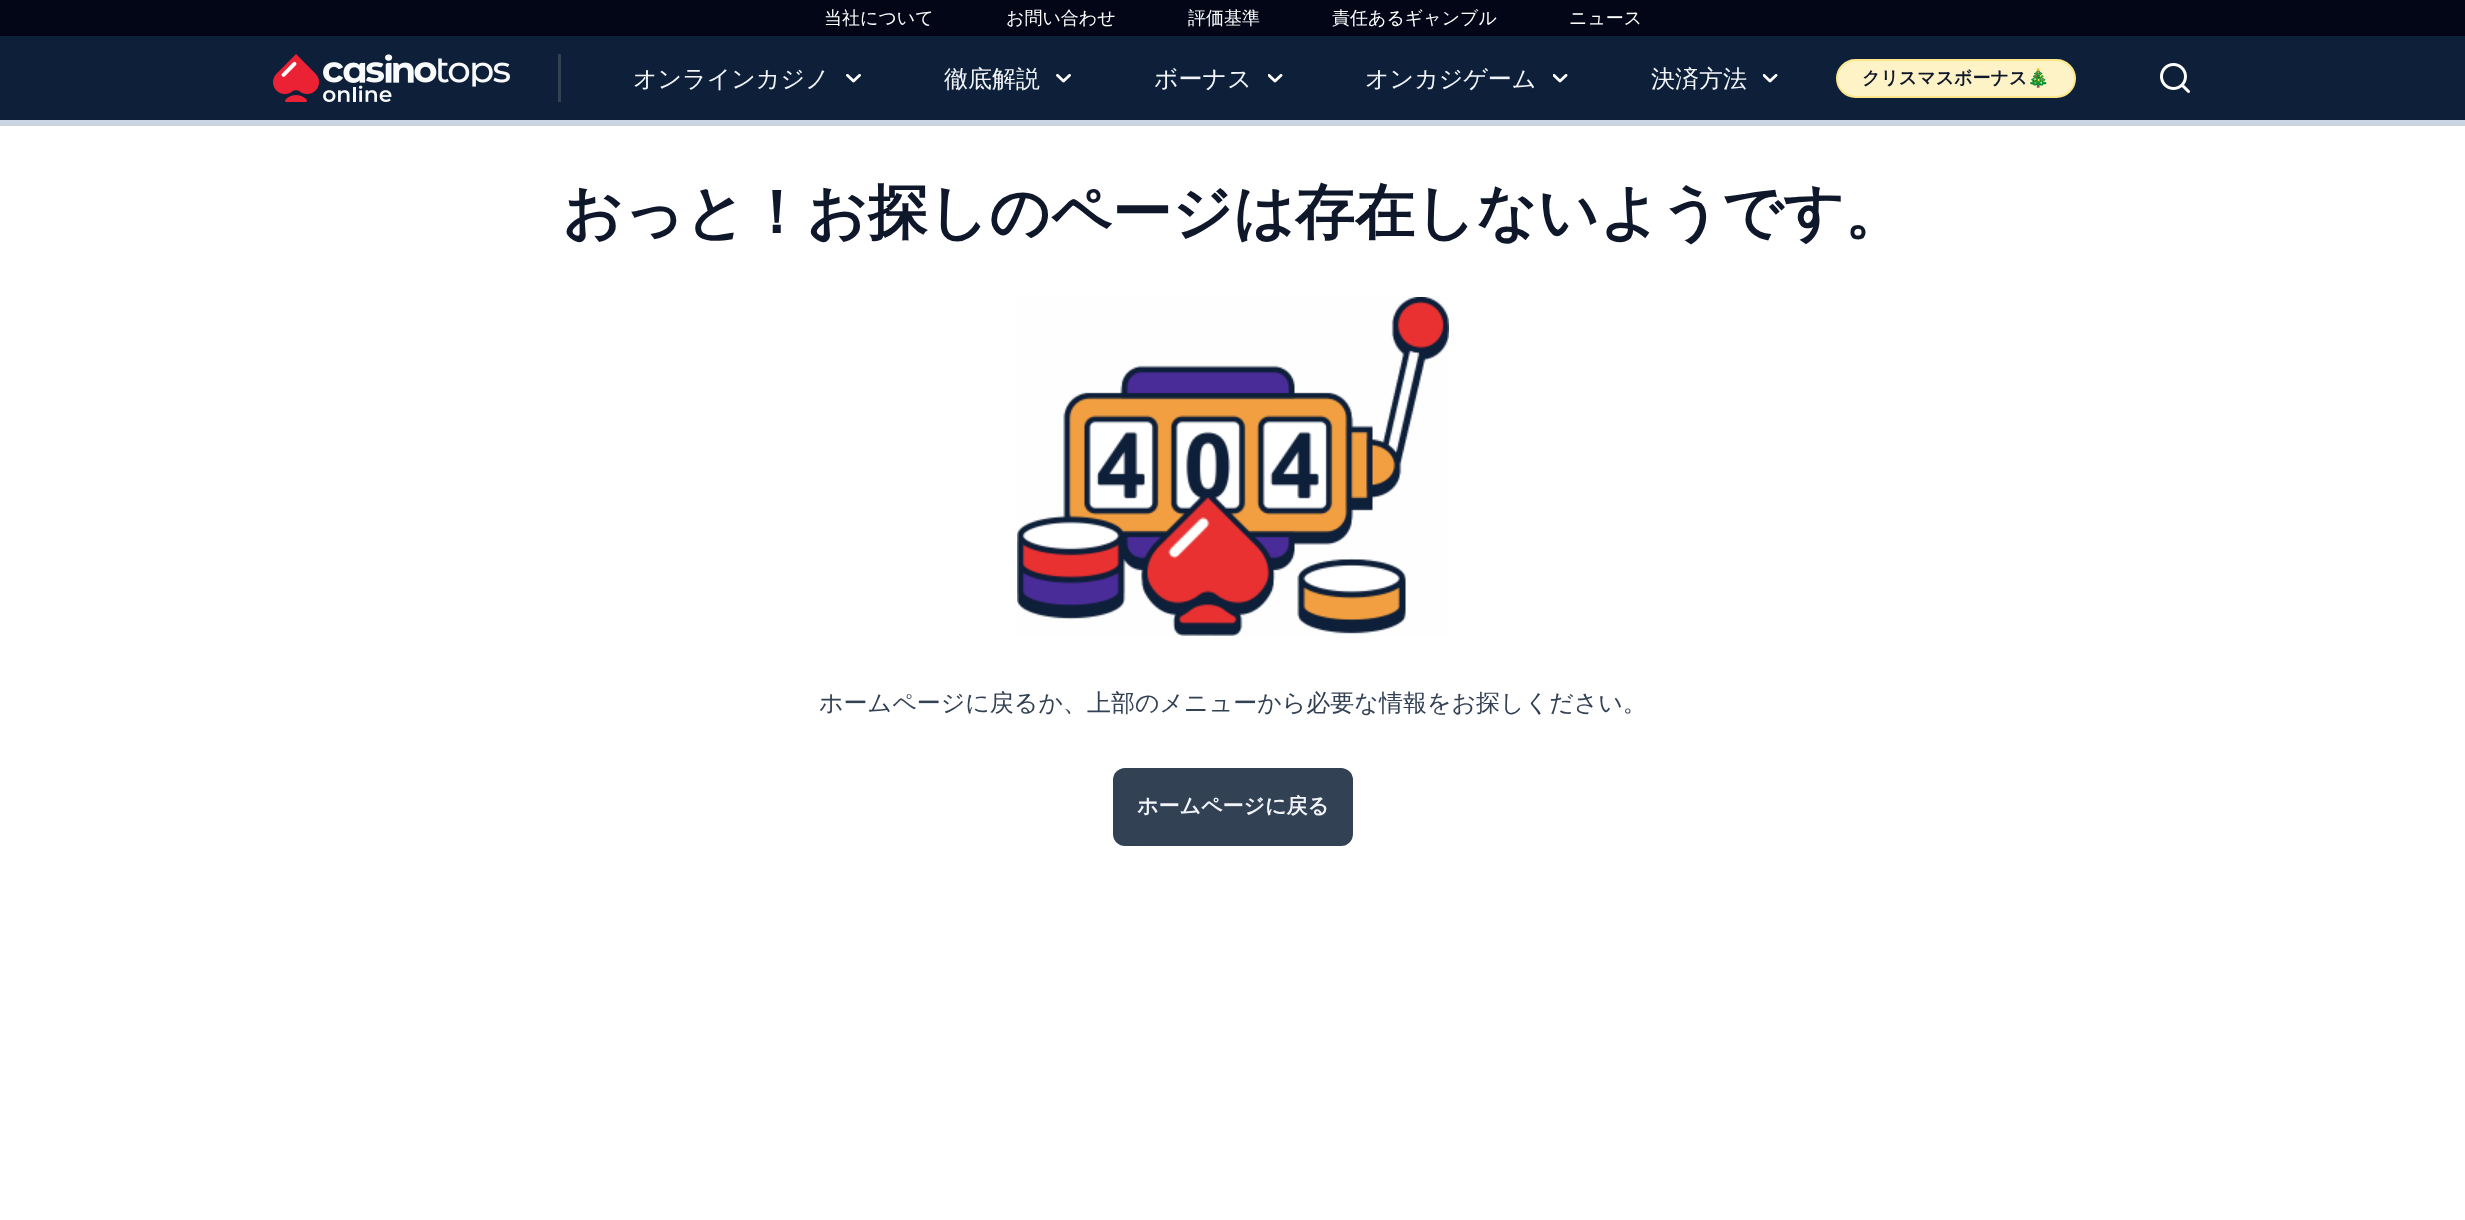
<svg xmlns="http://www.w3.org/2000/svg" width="2465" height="1220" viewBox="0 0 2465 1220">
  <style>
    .t1 { font: 500 18px WenQuanYi Zen Hei; fill: #fff; }
    .t2 { font: 500 24px WenQuanYi Zen Hei; fill: #f1f5f9; }
    .t3 { font: bold 18px WenQuanYi Zen Hei; fill: #0f172a; }
    .t4 { font: bold 18px Noto Color Emoji; fill: #0f172a; }
    .t5 { font: bold 60px WenQuanYi Zen Hei; fill: #0f172a; }
    .t6 { font: 500 24px WenQuanYi Zen Hei; fill: #334155; }
    .t7 { font: bold 21px WenQuanYi Zen Hei; fill: #f1f5f9; }
  </style>
  <rect width="100%" height="100%" fill="#fff"/>
  <rect x="0" y="0" width="2465" height="36" fill="#020617"/>
  <text x="824" y="24" class="t1">当社について</text>
  <text x="1006" y="24" class="t1">お問い合わせ</text>
  <text x="1188" y="24" class="t1">評価基準</text>
  <text x="1332" y="24" class="t1">責任あるギャンブル</text>
  <text x="1569" y="24" class="t1">ニュース</text>
  <rect x="0" y="36" width="2465" height="84" fill="#0e1f39"/>
  <image x="273" y="54" width="237" height="48" href="images/1.png"/>
  <rect x="558" y="54" width="3" height="48" fill="#334155"/>
  <text x="633" y="87" class="t2">オンラインカジノ</text>
  <image x="846" y="74" width="15" height="9" href="images/2.png"/>
  <text x="944" y="87" class="t2">徹底解説</text>
  <image x="1056" y="74" width="15" height="9" href="images/2.png"/>
  <text x="1154" y="87" class="t2">ボーナス</text>
  <image x="1268" y="74" width="15" height="9" href="images/3.png"/>
  <text x="1365" y="87" class="t2">オンカジゲーム</text>
  <image x="1553" y="74" width="15" height="9" href="images/3.png"/>
  <text x="1651" y="87" class="t2">決済方法</text>
  <image x="1763" y="74" width="15" height="9" href="images/3.png"/>
  <rect x="1837" y="60" width="238" height="37" rx="18.5" fill="#fef3c7" stroke="#fde68a" stroke-width="2"/>
  <text x="1862" y="84" class="t3">クリスマスボーナス</text>
  <text x="2027" y="84" class="t4">🎄</text>
  <image x="2160" y="63" width="30" height="30" href="images/4.png"/>
  <rect x="0" y="120" width="2465" height="6" fill="#cbd5e1"/>
  <text x="562" y="233" class="t5">おっと！お探しのページは存在しないようです。</text>
  <image x="1017" y="297" width="432" height="339" href="images/5.png"/>
  <text x="819" y="711" class="t6">ホームページに戻るか、上部のメニューから必要な情報をお探しください。</text>
  <rect x="1113" y="768" width="240" height="78" rx="12" fill="#334155"/>
  <text x="1137" y="813" class="t7">ホームページに戻る</text>
</svg>
